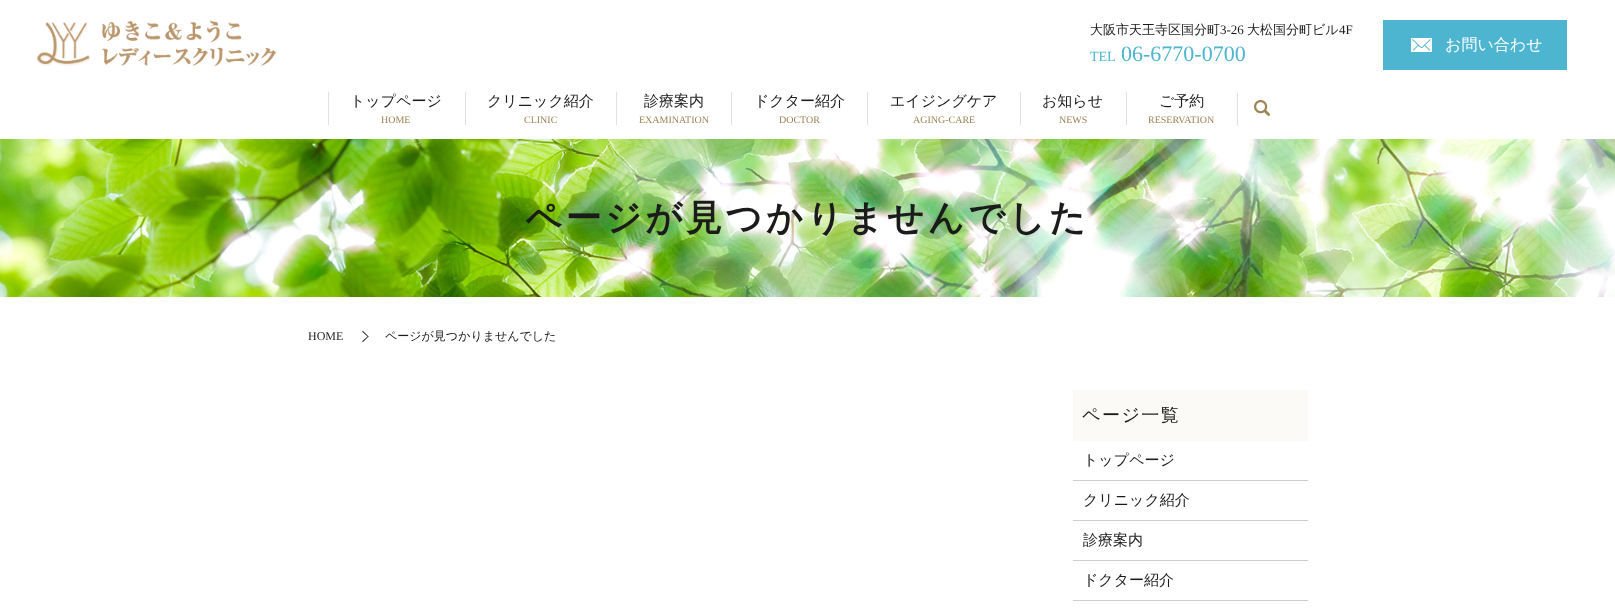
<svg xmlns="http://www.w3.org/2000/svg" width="1615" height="616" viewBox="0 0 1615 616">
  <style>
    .t1 { font: 500 13px WenQuanYi Zen Hei; fill: #1b1b1b; }
    .t2 { font: 13px Liberation Serif; fill: #1b1b1b; }
    .t3 { font: 14px Liberation Serif; fill: #4db5cf; }
    .t4 { font: 22px Liberation Serif; fill: #4db5cf; }
    .t5 { font: 500 16px WenQuanYi Zen Hei; fill: #fff; }
    .t6 { font: 500 15px WenQuanYi Zen Hei; fill: #1b1b1b; }
    .t7 { font: 10px Liberation Serif; fill: #998654; }
    .t8 { font: bold 36px WenQuanYi Zen Hei; letter-spacing: 3.6px; fill: #1b1b1b; }
    .t9 { font: 12px Liberation Serif; fill: #1b1b1b; }
    .t10 { font: 500 12px WenQuanYi Zen Hei; fill: #1b1b1b; }
    .t11 { font: 500 18px WenQuanYi Zen Hei; letter-spacing: 1.5px; fill: #1b1b1b; }
  </style>
  <rect width="100%" height="100%" fill="#fff"/>
  <image x="37" y="20" width="240" height="47" href="images/1.png"/>
  <text x="1090" y="34" class="t1">大阪市天王寺区国分町</text>
  <text x="1220" y="34" class="t2">3-26</text>
  <text x="1247" y="34" class="t1">大松国分町ビル</text>
  <text x="1339" y="34" class="t2">4F</text>
  <text x="1090" y="61" class="t3">TEL</text>
  <text x="1121" y="61" class="t4">06-6770-0700</text>
  <rect x="1383" y="20" width="184" height="50" fill="#4db5cf"/>
  <image x="1411" y="38" width="21" height="14" href="images/2.png"/>
  <text x="1445" y="50" class="t5">お問い合わせ</text>
  <rect x="328" y="92" width="1" height="33" fill="#e0e0e0"/>
  <text x="350" y="106" class="t6">トップページ</text>
  <text x="381" y="123" class="t7">HOME</text>
  <rect x="465" y="92" width="1" height="33" fill="#e0e0e0"/>
  <text x="487" y="106" class="t6">クリニック紹介</text>
  <text x="524" y="123" class="t7">CLINIC</text>
  <rect x="616" y="92" width="1" height="33" fill="#e0e0e0"/>
  <text x="644" y="106" class="t6">診療案内</text>
  <text x="639" y="123" class="t7">EXAMINATION</text>
  <rect x="731" y="92" width="1" height="33" fill="#e0e0e0"/>
  <text x="754" y="106" class="t6">ドクター紹介</text>
  <text x="779" y="123" class="t7">DOCTOR</text>
  <rect x="867" y="92" width="1" height="33" fill="#e0e0e0"/>
  <text x="890" y="106" class="t6">エイジングケア</text>
  <text x="913" y="123" class="t7">AGING-CARE</text>
  <rect x="1020" y="92" width="1" height="33" fill="#e0e0e0"/>
  <text x="1042" y="106" class="t6">お知らせ</text>
  <text x="1059" y="123" class="t7">NEWS</text>
  <rect x="1126" y="92" width="1" height="33" fill="#e0e0e0"/>
  <text x="1159" y="106" class="t6">ご予約</text>
  <text x="1148" y="123" class="t7">RESERVATION</text>
  <image x="1254" y="100" width="16" height="16" href="images/3.png"/>
  <rect x="1237" y="93" width="1" height="33" fill="#e0e0e0"/>
  <image x="0" y="139" width="1615" height="158" href="images/4.png"/>
  <text x="525" y="230" class="t8">ページが見つかりませんでした</text>
  <text x="308" y="340" class="t9">HOME</text>
  <path d="M363 331L368.5 336.5L368 337L362 331.5Z" fill="#1b1b1b"/>
  <path d="M368 336L368.5 336.5L363 342L362 341.5Z" fill="#1b1b1b"/>
  <text x="385" y="340" class="t10">ページが見つかりませんでした</text>
  <rect x="1073" y="390" width="235" height="51" fill="#fbfaf7"/>
  <text x="1082" y="421" class="t11">ページ一覧</text>
  <rect x="1073" y="480" width="235" height="1" fill="#ccc"/>
  <text x="1083" y="465" class="t6">トップページ</text>
  <rect x="1073" y="520" width="235" height="1" fill="#ccc"/>
  <text x="1083" y="505" class="t6">クリニック紹介</text>
  <rect x="1073" y="560" width="235" height="1" fill="#ccc"/>
  <text x="1083" y="545" class="t6">診療案内</text>
  <rect x="1073" y="600" width="235" height="1" fill="#ccc"/>
  <text x="1083" y="585" class="t6">ドクター紹介</text>
</svg>
